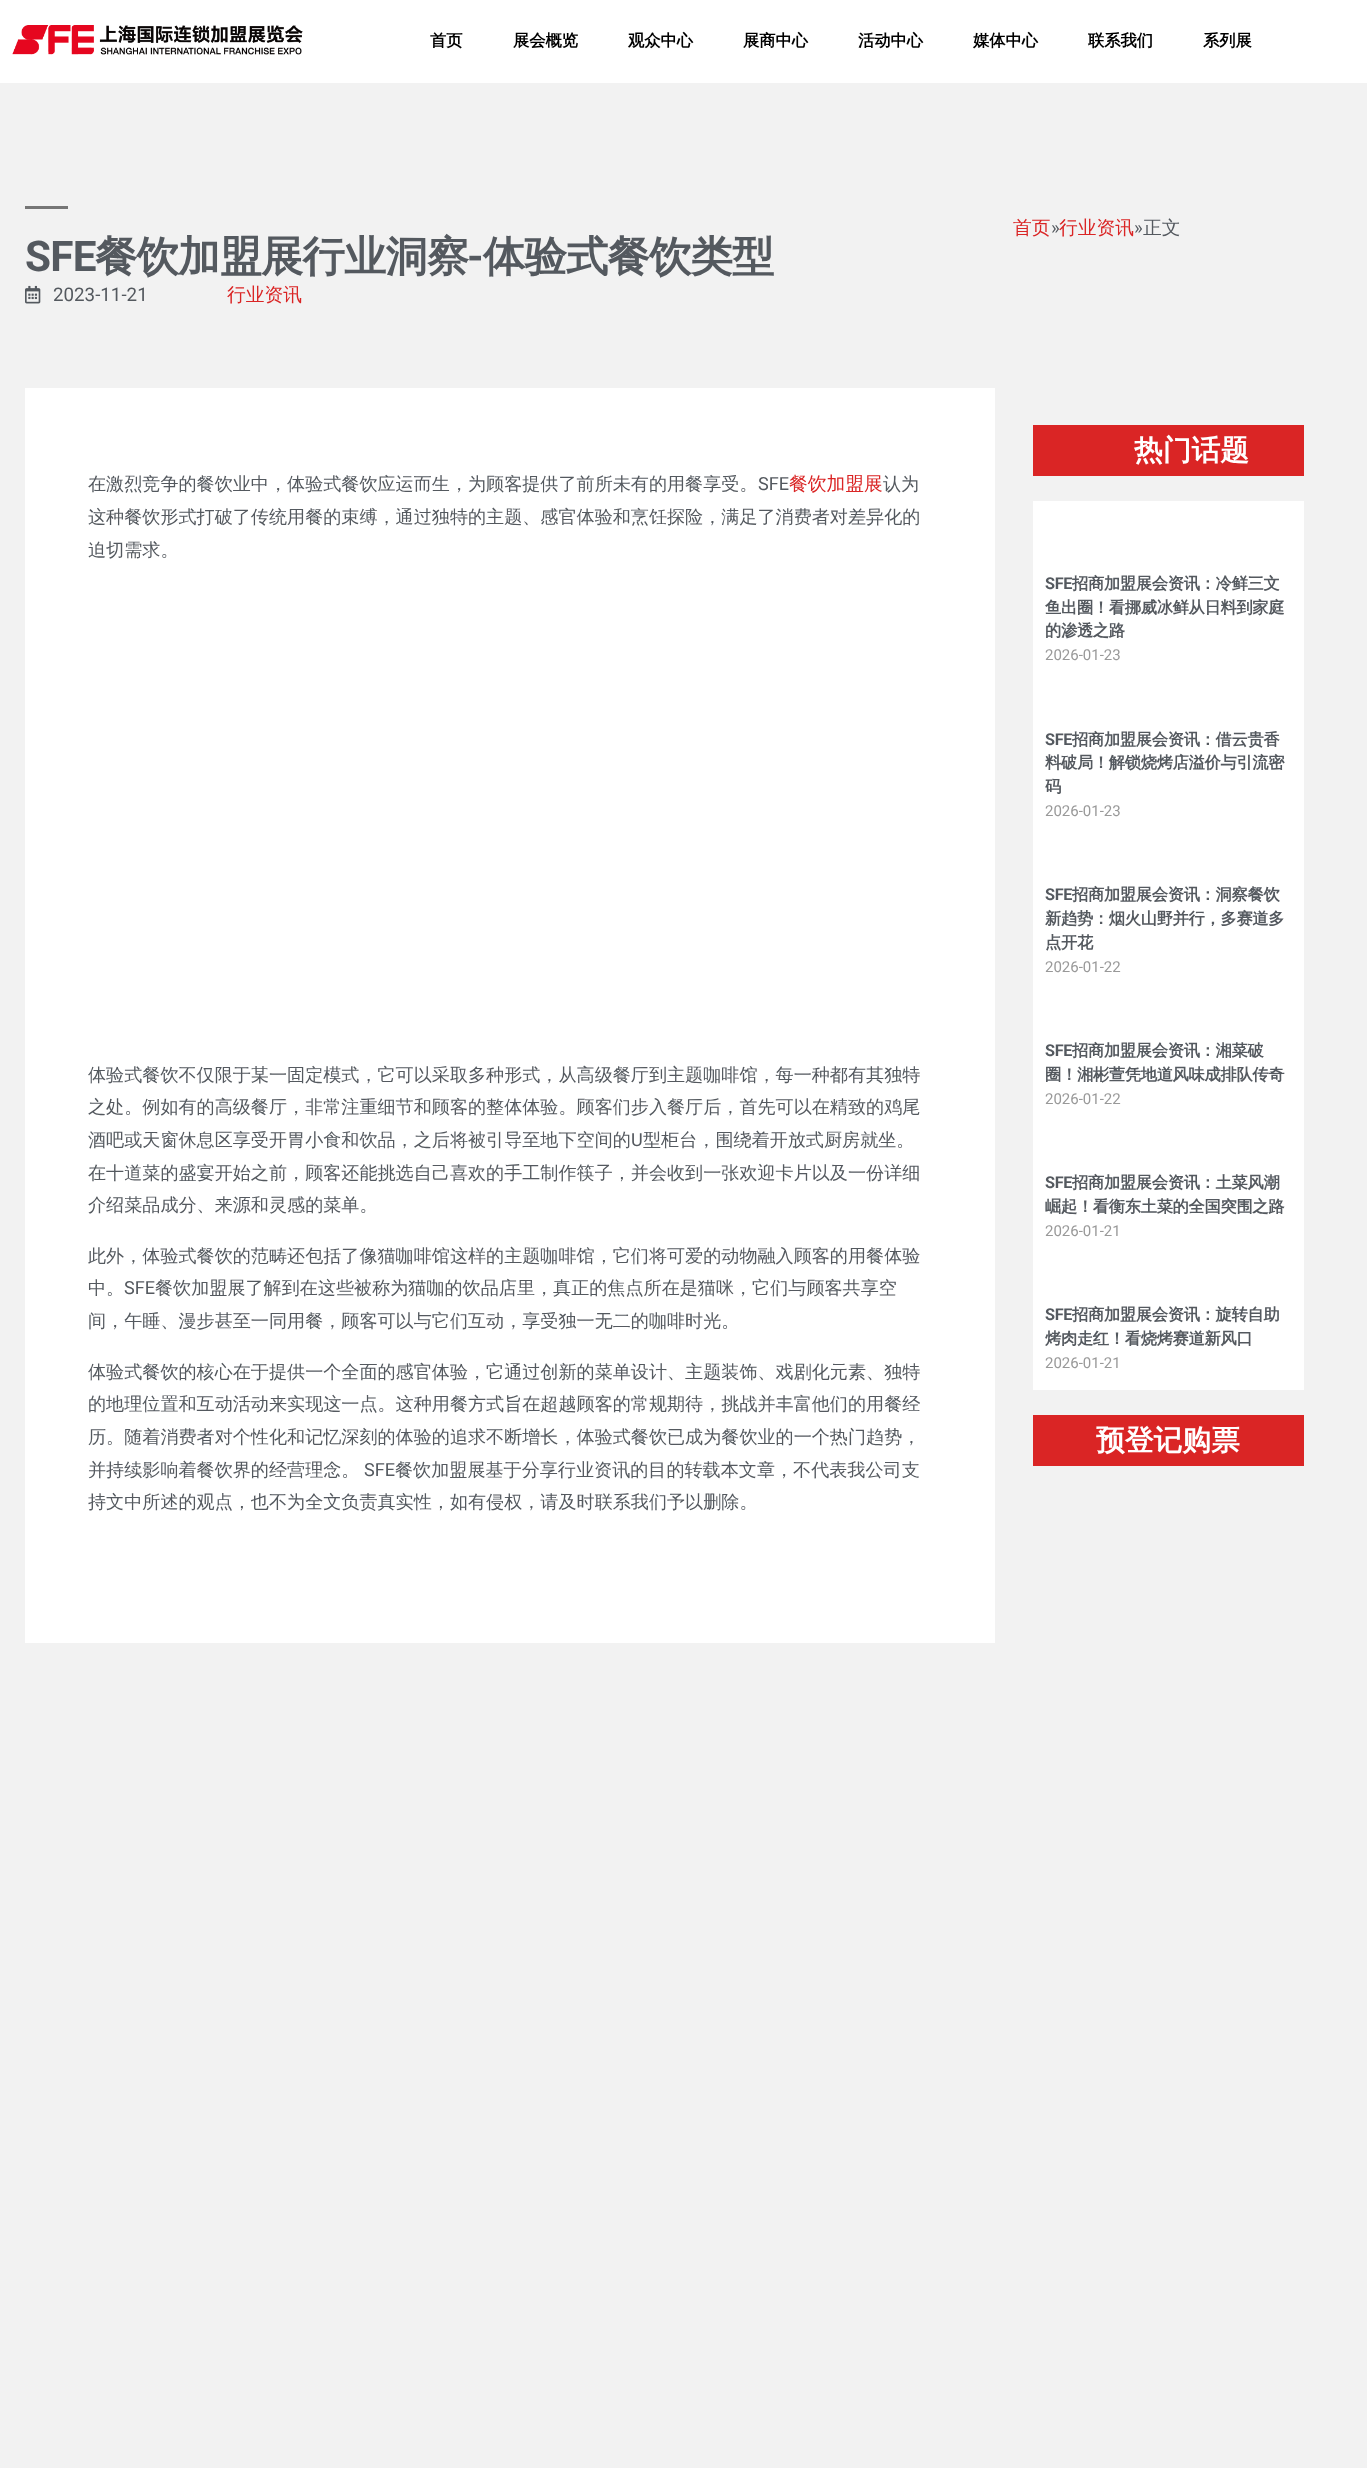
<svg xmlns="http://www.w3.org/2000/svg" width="1367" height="2468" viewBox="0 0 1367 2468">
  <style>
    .t1 { font: bold 16.25px WenQuanYi Zen Hei; fill: #000; }
    .t2 { font: 500 18.75px WenQuanYi Zen Hei; fill: #da2525; }
    .t3 { font: 18.75px Roboto; fill: #54595f; }
    .t4 { font: 500 18.75px WenQuanYi Zen Hei; fill: #54595f; }
    .t5 { font: bold 42.25px Roboto; letter-spacing: -0.75px; fill: #54595f; }
    .t6 { font: bold 42.25px WenQuanYi Zen Hei; letter-spacing: -0.75px; fill: #54595f; }
    .t7 { font: 500 18.1px WenQuanYi Zen Hei; fill: #54595f; }
    .t8 { font: 18.1px Roboto; fill: #54595f; }
    .t9 { font: bold 28.75px WenQuanYi Zen Hei; fill: #fff; }
    .t10 { font: bold 16.25px Roboto; letter-spacing: -0.3px; fill: #54595f; }
    .t11 { font: bold 16.25px WenQuanYi Zen Hei; letter-spacing: -0.3px; fill: #54595f; }
    .t12 { font: 15px Roboto; fill: #999; }
  </style>
  <rect width="100%" height="100%" fill="#f2f2f2"/>
  <rect x="0" y="0" width="1367" height="83" fill="#fff"/>
  <image x="12" y="25" width="291" height="30" href="images/1.png"/>
  <text x="430" y="46" class="t1">首页</text>
  <text x="513" y="46" class="t1">展会概览</text>
  <text x="628" y="46" class="t1">观众中心</text>
  <text x="743" y="46" class="t1">展商中心</text>
  <text x="858" y="46" class="t1">活动中心</text>
  <text x="973" y="46" class="t1">媒体中心</text>
  <text x="1088" y="46" class="t1">联系我们</text>
  <text x="1203" y="46" class="t1">系列展</text>
  <text x="1013" y="234" class="t2">首页</text>
  <text x="1051" y="234" class="t3">»</text>
  <text x="1059" y="234" class="t2">行业资讯</text>
  <text x="1134" y="234" class="t3">»</text>
  <text x="1143" y="234" class="t4">正文</text>
  <rect x="25" y="206" width="43" height="3" fill="#767676"/>
  <text x="25" y="271" class="t5">SFE</text>
  <text x="95" y="271" class="t6">餐饮加盟展行业洞察</text>
  <text x="467" y="271" class="t5">-</text>
  <text x="483" y="271" class="t6">体验式餐饮类型</text>
  <image x="25" y="285" width="16" height="19" href="images/2.png"/>
  <text x="53" y="301" class="t3">2023-11-21</text>
  <text x="227" y="301" class="t2">行业资讯</text>
  <rect x="25" y="388" width="970" height="1255" fill="#fff"/>
  <text x="88" y="490" class="t7">在激烈竞争的餐饮业中，体验式餐饮应运而生，为顾客提供了前所未有的用餐享受。</text>
  <text x="758" y="490" class="t8">SFE</text>
  <text x="789" y="490" class="t2">餐饮加盟展</text>
  <text x="883" y="490" class="t7">认为</text>
  <text x="88" y="523" class="t7">这种餐饮形式打破了传统用餐的束缚，通过独特的主题、感官体验和烹饪探险，满足了消费者对差异化的</text>
  <text x="88" y="556" class="t7">迫切需求。</text>
  <text x="88" y="1081" class="t7">体验式餐饮不仅限于某一固定模式，它可以采取多种形式，从高级餐厅到主题咖啡馆，每一种都有其独特</text>
  <text x="88" y="1113" class="t7">之处。例如有的高级餐厅，非常注重细节和顾客的整体体验。顾客们步入餐厅后，首先可以在精致的鸡尾</text>
  <text x="88" y="1146" class="t7">酒吧或天窗休息区享受开胃小食和饮品，之后将被引导至地下空间的</text>
  <text x="631" y="1146" class="t8">U</text>
  <text x="643" y="1146" class="t7">型柜台，围绕着开放式厨房就坐。</text>
  <text x="88" y="1179" class="t7">在十道菜的盛宴开始之前，顾客还能挑选自己喜欢的手工制作筷子，并会收到一张欢迎卡片以及一份详细</text>
  <text x="88" y="1211" class="t7">介绍菜品成分、来源和灵感的菜单。</text>
  <text x="88" y="1262" class="t7">此外，体验式餐饮的范畴还包括了像猫咖啡馆这样的主题咖啡馆，它们将可爱的动物融入顾客的用餐体验</text>
  <text x="88" y="1294" class="t7">中。</text>
  <text x="124" y="1294" class="t8">SFE</text>
  <text x="155" y="1294" class="t7">餐饮加盟展了解到在这些被称为猫咖的饮品店里，真正的焦点所在是猫咪，它们与顾客共享空</text>
  <text x="88" y="1327" class="t7">间，午睡、漫步甚至一同用餐，顾客可以与它们互动，享受独一无二的咖啡时光。</text>
  <text x="88" y="1378" class="t7">体验式餐饮的核心在于提供一个全面的感官体验，它通过创新的菜单设计、主题装饰、戏剧化元素、独特</text>
  <text x="88" y="1410" class="t7">的地理位置和互动活动来实现这一点。这种用餐方式旨在超越顾客的常规期待，挑战并丰富他们的用餐经</text>
  <text x="88" y="1443" class="t7">历。随着消费者对个性化和记忆深刻的体验的追求不断增长，体验式餐饮已成为餐饮业的一个热门趋势，</text>
  <text x="88" y="1476" class="t7">并持续影响着餐饮界的经营理念。</text>
  <text x="364" y="1476" class="t8">SFE</text>
  <text x="395" y="1476" class="t7">餐饮加盟展基于分享行业资讯的目的转载本文章，不代表我公司支</text>
  <text x="88" y="1508" class="t7">持文中所述的观点，也不为全文负责真实性，如有侵权，请及时联系我们予以删除。</text>
  <rect x="1033" y="425" width="271" height="51" fill="#da2525"/>
  <text x="1134" y="460" class="t9">热门话题</text>
  <rect x="1033" y="501" width="271" height="889" fill="#fff"/>
  <text x="1045" y="589" class="t10">SFE</text>
  <text x="1072" y="589" class="t11">招商加盟展会资讯：冷鲜三文</text>
  <text x="1045" y="613" class="t11">鱼出圈！看挪威冰鲜从日料到家庭</text>
  <text x="1045" y="636" class="t11">的渗透之路</text>
  <text x="1045" y="660" class="t12">2026-01-23</text>
  <text x="1045" y="745" class="t10">SFE</text>
  <text x="1072" y="745" class="t11">招商加盟展会资讯：借云贵香</text>
  <text x="1045" y="768" class="t11">料破局！解锁烧烤店溢价与引流密</text>
  <text x="1045" y="792" class="t11">码</text>
  <text x="1045" y="816" class="t12">2026-01-23</text>
  <text x="1045" y="900" class="t10">SFE</text>
  <text x="1072" y="900" class="t11">招商加盟展会资讯：洞察餐饮</text>
  <text x="1045" y="924" class="t11">新趋势：烟火山野并行，多赛道多</text>
  <text x="1045" y="948" class="t11">点开花</text>
  <text x="1045" y="972" class="t12">2026-01-22</text>
  <text x="1045" y="1056" class="t10">SFE</text>
  <text x="1072" y="1056" class="t11">招商加盟展会资讯：湘菜破</text>
  <text x="1045" y="1080" class="t11">圈！湘彬萱凭地道风味成排队传奇</text>
  <text x="1045" y="1104" class="t12">2026-01-22</text>
  <text x="1045" y="1188" class="t10">SFE</text>
  <text x="1072" y="1188" class="t11">招商加盟展会资讯：土菜风潮</text>
  <text x="1045" y="1212" class="t11">崛起！看衡东土菜的全国突围之路</text>
  <text x="1045" y="1236" class="t12">2026-01-21</text>
  <text x="1045" y="1320" class="t10">SFE</text>
  <text x="1072" y="1320" class="t11">招商加盟展会资讯：旋转自助</text>
  <text x="1045" y="1344" class="t11">烤肉走红！看烧烤赛道新风口</text>
  <text x="1045" y="1368" class="t12">2026-01-21</text>
  <rect x="1033" y="1415" width="271" height="51" fill="#da2525"/>
  <text x="1096" y="1450" class="t9">预登记购票</text>
</svg>
